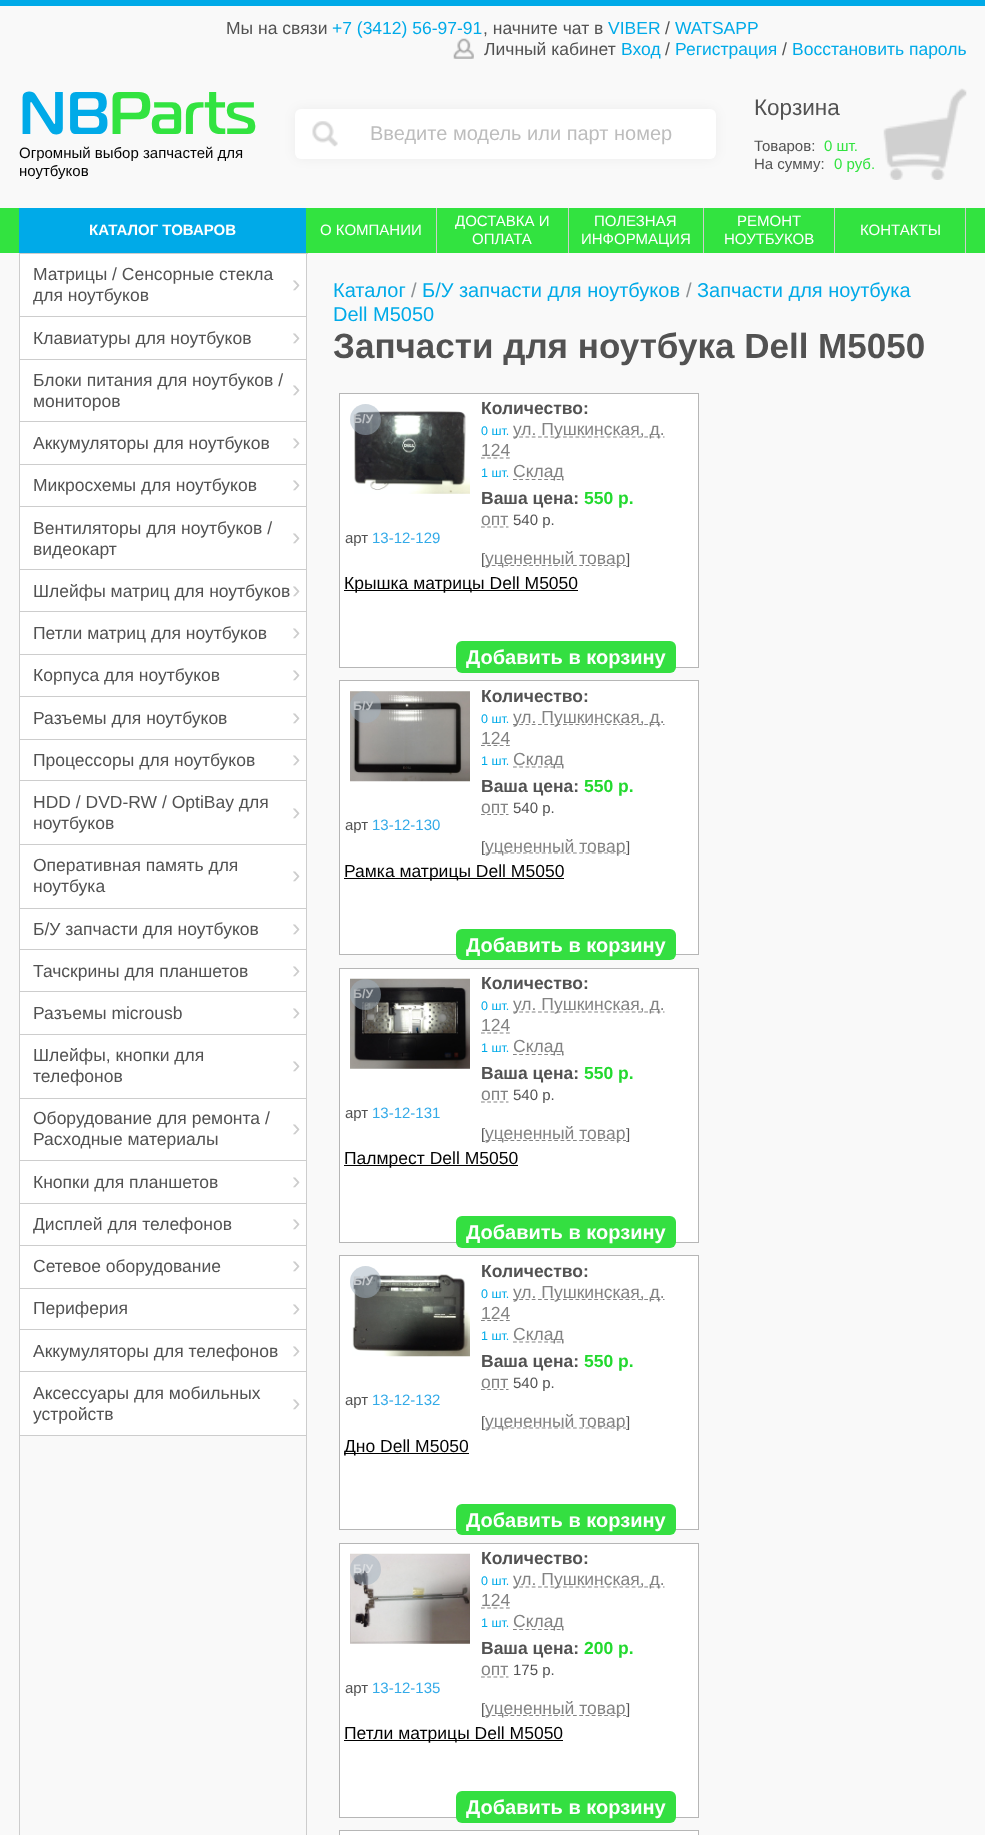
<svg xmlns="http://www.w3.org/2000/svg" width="985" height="1835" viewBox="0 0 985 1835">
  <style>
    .t1 { font: 17.5px Liberation Sans; fill: #525252; }
    .t2 { font: 17.5px Liberation Sans; fill: #00aae8; }
    .t3 { font: bold 60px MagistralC; fill: #00aae8; }
    .t4 { font: bold 60px MagistralC; fill: #32e340; }
    .t5 { font: 15px Liberation Sans; fill: #030303; }
    .t6 { font: 20px Liberation Sans; fill: #bdbdbd; }
    .t7 { font: 22.5px Liberation Sans; fill: #525252; }
    .t8 { font: 15px Liberation Sans; fill: #525252; }
    .t9 { font: 15px Liberation Sans; fill: #32e340; }
    .t10 { font: bold 15px Liberation Sans; fill: #fff; }
    .t11 { font: 15px Liberation Sans; fill: #fff; }
    .t12 { font: 25px Liberation Sans; fill: #cdcdcd; }
    .t13 { font: 20px Liberation Sans; fill: #00aae8; }
    .t14 { font: 20px Liberation Sans; fill: #8e9193; }
    .t15 { font: bold 35px Liberation Sans; fill: #525252; }
    .t16 { font: bold 12.5px Liberation Sans; fill: #bec2c6; }
    .t17 { font: 15px Liberation Sans; fill: #33aae8; }
    .t18 { font: bold 17.5px Liberation Sans; fill: #525252; }
    .t19 { font: 12.5px Liberation Sans; fill: #00aae8; }
    .t20 { font: 17.5px Liberation Sans; fill: #838383; }
    .t21 { font: bold 17.5px Liberation Sans; fill: #23d92f; }
    .t22 { font: 17.5px Liberation Sans; fill: #030303; }
    .t23 { font: bold 20px Liberation Sans; fill: #fff; }
    .t24 { font: bold 12.5px Liberation Sans; fill: #b2b6b9; }
    .t25 { font: bold 12.5px Liberation Sans; fill: #c6cace; }
    .t26 { font: bold 12.5px Liberation Sans; fill: #dbdee1; }
  </style>
  <rect width="100%" height="100%" fill="#f9f9f9"/>
  <rect x="0" y="0" width="985" height="6" fill="#00aae8"/>
  <text x="226" y="34" class="t1">Мы на связи</text>
  <text x="332" y="34" class="t2">+7 (3412) 56-97-91</text>
  <text x="483" y="34" class="t1">, начните чат в</text>
  <text x="608" y="34" class="t2">VIBER</text>
  <text x="665" y="34" class="t1">/</text>
  <text x="675" y="34" class="t2">WATSAPP</text>
  <image x="453" y="38" width="21" height="21" href="images/1.png"/>
  <text x="484" y="55" class="t1">Личный кабинет</text>
  <text x="621" y="55" class="t2">Вход</text>
  <text x="665" y="55" class="t1">/</text>
  <text x="675" y="55" class="t2">Регистрация</text>
  <text x="782" y="55" class="t1">/</text>
  <text x="792" y="55" class="t2">Восстановить пароль</text>
  <text x="19" y="134" class="t3">NB</text>
  <text x="109" y="134" class="t4">Parts</text>
  <text x="19" y="158" class="t5">Огромный выбор запчастей для</text>
  <text x="19" y="176" class="t5">ноутбуков</text>
  <rect x="295" y="109" width="421" height="50" rx="6" fill="#0000000d" filter="blur(6px)"/>
  <rect x="295" y="109" width="421" height="50" rx="6" fill="#fff"/>
  <image x="312" y="121" width="26" height="26" href="images/2.png"/>
  <text x="370" y="140" class="t6">Введите модель или парт номер</text>
  <image x="883" y="88" width="84" height="92" href="images/3.png"/>
  <text x="754" y="115" class="t7">Корзина</text>
  <text x="754" y="151" class="t8">Товаров:</text>
  <text x="824" y="151" class="t9">0 шт.</text>
  <text x="754" y="169" class="t8">На сумму:</text>
  <text x="834" y="169" class="t9">0 руб.</text>
  <rect x="0" y="208" width="985" height="45" fill="#32e340"/>
  <rect x="19" y="208" width="287" height="45" fill="#00aae8"/>
  <text x="89" y="235" class="t10">КАТАЛОГ ТОВАРОВ</text>
  <rect x="436" y="208" width="1" height="45" fill="#cdcdcd"/>
  <text x="320" y="235" class="t11">О КОМПАНИИ</text>
  <rect x="568" y="208" width="1" height="45" fill="#cdcdcd"/>
  <text x="455" y="226" class="t11">ДОСТАВКА И</text>
  <text x="472" y="244" class="t11">ОПЛАТА</text>
  <rect x="703" y="208" width="1" height="45" fill="#cdcdcd"/>
  <text x="594" y="226" class="t11">ПОЛЕЗНАЯ</text>
  <text x="581" y="244" class="t11">ИНФОРМАЦИЯ</text>
  <rect x="834" y="208" width="1" height="45" fill="#cdcdcd"/>
  <text x="737" y="226" class="t11">РЕМОНТ</text>
  <text x="724" y="244" class="t11">НОУТБУКОВ</text>
  <rect x="965" y="208" width="1" height="45" fill="#cdcdcd"/>
  <text x="860" y="235" class="t11">КОНТАКТЫ</text>
  <rect x="19" y="253" width="289" height="1" fill="#cdcdcd"/>
  <rect x="306" y="253" width="1" height="1582" fill="#cdcdcd"/>
  <rect x="19" y="253" width="1" height="1582" fill="#cdcdcd"/>
  <rect x="20" y="254" width="286" height="105" fill="#fff"/>
  <rect x="20" y="316" width="286" height="1" fill="#cdcdcd"/>
  <text x="33" y="280" class="t1">Матрицы / Сенсорные стекла</text>
  <text x="292" y="292" class="t12">›</text>
  <text x="33" y="301" class="t1">для ноутбуков</text>
  <rect x="20" y="359" width="286" height="1" fill="#cdcdcd"/>
  <text x="33" y="344" class="t1">Клавиатуры для ноутбуков</text>
  <text x="292" y="345" class="t12">›</text>
  <rect x="20" y="360" width="286" height="104" fill="#fff"/>
  <rect x="20" y="421" width="286" height="1" fill="#cdcdcd"/>
  <text x="33" y="386" class="t1">Блоки питания для ноутбуков /</text>
  <text x="292" y="397" class="t12">›</text>
  <text x="33" y="407" class="t1">мониторов</text>
  <rect x="20" y="464" width="286" height="1" fill="#cdcdcd"/>
  <text x="33" y="449" class="t1">Аккумуляторы для ноутбуков</text>
  <text x="292" y="450" class="t12">›</text>
  <rect x="20" y="465" width="286" height="104" fill="#fff"/>
  <rect x="20" y="506" width="286" height="1" fill="#cdcdcd"/>
  <text x="33" y="491" class="t1">Микросхемы для ноутбуков</text>
  <text x="292" y="492" class="t12">›</text>
  <rect x="20" y="569" width="286" height="1" fill="#cdcdcd"/>
  <text x="33" y="534" class="t1">Вентиляторы для ноутбуков /</text>
  <text x="292" y="545" class="t12">›</text>
  <text x="33" y="555" class="t1">видеокарт</text>
  <rect x="20" y="570" width="286" height="84" fill="#fff"/>
  <rect x="20" y="611" width="286" height="1" fill="#cdcdcd"/>
  <text x="33" y="597" class="t1">Шлейфы матриц для ноутбуков</text>
  <text x="292" y="598" class="t12">›</text>
  <rect x="20" y="654" width="286" height="1" fill="#cdcdcd"/>
  <text x="33" y="639" class="t1">Петли матриц для ноутбуков</text>
  <text x="292" y="640" class="t12">›</text>
  <rect x="20" y="655" width="286" height="84" fill="#fff"/>
  <rect x="20" y="696" width="286" height="1" fill="#cdcdcd"/>
  <text x="33" y="681" class="t1">Корпуса для ноутбуков</text>
  <text x="292" y="682" class="t12">›</text>
  <rect x="20" y="739" width="286" height="1" fill="#cdcdcd"/>
  <text x="33" y="724" class="t1">Разъемы для ноутбуков</text>
  <text x="292" y="725" class="t12">›</text>
  <rect x="20" y="740" width="286" height="40" fill="#fff"/>
  <rect x="20" y="780" width="286" height="1" fill="#cdcdcd"/>
  <text x="33" y="766" class="t1">Процессоры для ноутбуков</text>
  <text x="292" y="767" class="t12">›</text>
  <rect x="20" y="781" width="286" height="63" fill="#fff"/>
  <rect x="20" y="844" width="286" height="1" fill="#cdcdcd"/>
  <text x="33" y="808" class="t1">HDD / DVD-RW / OptiBay для</text>
  <text x="292" y="820" class="t12">›</text>
  <text x="33" y="829" class="t1">ноутбуков</text>
  <rect x="20" y="845" width="286" height="63" fill="#fff"/>
  <rect x="20" y="908" width="286" height="1" fill="#cdcdcd"/>
  <text x="33" y="871" class="t1">Оперативная память для</text>
  <text x="292" y="883" class="t12">›</text>
  <text x="33" y="892" class="t1">ноутбука</text>
  <rect x="20" y="909" width="286" height="40" fill="#fff"/>
  <rect x="20" y="949" width="286" height="1" fill="#cdcdcd"/>
  <text x="33" y="935" class="t1">Б/У запчасти для ноутбуков</text>
  <text x="292" y="936" class="t12">›</text>
  <rect x="20" y="950" width="286" height="84" fill="#fff"/>
  <rect x="20" y="991" width="286" height="1" fill="#cdcdcd"/>
  <text x="33" y="977" class="t1">Тачскрины для планшетов</text>
  <text x="292" y="978" class="t12">›</text>
  <rect x="20" y="1034" width="286" height="1" fill="#cdcdcd"/>
  <text x="33" y="1019" class="t1">Разъемы microusb</text>
  <text x="292" y="1020" class="t12">›</text>
  <rect x="20" y="1035" width="286" height="63" fill="#fff"/>
  <rect x="20" y="1098" width="286" height="1" fill="#cdcdcd"/>
  <text x="33" y="1061" class="t1">Шлейфы, кнопки для</text>
  <text x="292" y="1073" class="t12">›</text>
  <text x="33" y="1082" class="t1">телефонов</text>
  <rect x="20" y="1099" width="286" height="61" fill="#fff"/>
  <rect x="20" y="1160" width="286" height="1" fill="#cdcdcd"/>
  <text x="33" y="1124" class="t1">Оборудование для ремонта /</text>
  <text x="292" y="1136" class="t12">›</text>
  <text x="33" y="1145" class="t1">Расходные материалы</text>
  <rect x="20" y="1161" width="286" height="42" fill="#fff"/>
  <rect x="20" y="1203" width="286" height="1" fill="#cdcdcd"/>
  <text x="33" y="1188" class="t1">Кнопки для планшетов</text>
  <text x="292" y="1189" class="t12">›</text>
  <rect x="20" y="1204" width="286" height="41" fill="#fff"/>
  <rect x="20" y="1245" width="286" height="1" fill="#cdcdcd"/>
  <text x="33" y="1230" class="t1">Дисплей для телефонов</text>
  <text x="292" y="1231" class="t12">›</text>
  <rect x="20" y="1246" width="286" height="42" fill="#fff"/>
  <rect x="20" y="1288" width="286" height="1" fill="#cdcdcd"/>
  <text x="33" y="1272" class="t1">Сетевое оборудование</text>
  <text x="292" y="1273" class="t12">›</text>
  <rect x="20" y="1289" width="286" height="40" fill="#fff"/>
  <rect x="20" y="1329" width="286" height="1" fill="#cdcdcd"/>
  <text x="33" y="1314" class="t1">Периферия</text>
  <text x="292" y="1316" class="t12">›</text>
  <rect x="20" y="1330" width="286" height="105" fill="#fff"/>
  <rect x="20" y="1371" width="286" height="1" fill="#cdcdcd"/>
  <text x="33" y="1357" class="t1">Аккумуляторы для телефонов</text>
  <text x="292" y="1358" class="t12">›</text>
  <rect x="20" y="1435" width="286" height="1" fill="#cdcdcd"/>
  <text x="33" y="1399" class="t1">Аксессуары для мобильных</text>
  <text x="292" y="1411" class="t12">›</text>
  <text x="33" y="1420" class="t1">устройств</text>
  <text x="333" y="297" class="t13">Каталог</text>
  <text x="411" y="297" class="t14">/</text>
  <text x="422" y="297" class="t13">Б/У запчасти для ноутбуков</text>
  <text x="686" y="297" class="t14">/</text>
  <text x="697" y="297" class="t13">Запчасти для ноутбука</text>
  <text x="333" y="321" class="t13">Dell M5050</text>
  <text x="333" y="358" class="t15">Запчасти для ноутбука Dell M5050</text>
  <rect x="339.5" y="393.5" width="359" height="274" fill="#fff" stroke="#b6b6b6"/>
  <image x="354" y="411" width="116" height="83" href="images/4.png"/>
  <circle cx="365.5" cy="419.5" r="15.5" fill="#a2b2c080"/>
  <text x="353" y="423" class="t16">Б/У</text>
  <text x="345" y="543" class="t8">арт</text>
  <text x="372" y="543" class="t17">13-12-129</text>
  <text x="481" y="414" class="t18">Количество:</text>
  <text x="481" y="435" class="t19">0 шт.</text>
  <path d="M513 437H664.5" fill="none" stroke="#838383" stroke-width="1.2" stroke-dasharray="3.75 2.5"/>
  <text x="513" y="435" class="t20">ул. Пушкинская, д.</text>
  <text x="481" y="456" class="t20">124</text>
  <path d="M481 458H510.5" fill="none" stroke="#838383" stroke-width="1.2" stroke-dasharray="3.75 2.5"/>
  <text x="481" y="477" class="t19">1 шт.</text>
  <path d="M513 479.5H563.5" fill="none" stroke="#838383" stroke-width="1.2" stroke-dasharray="3.75 2.5"/>
  <text x="513" y="477" class="t20">Склад</text>
  <text x="481" y="504" class="t18">Ваша цена:</text>
  <text x="584" y="504" class="t21">550 р.</text>
  <text x="481" y="525" class="t20">опт</text>
  <path d="M481 527H508.5" fill="none" stroke="#838383" stroke-width="1.2" stroke-dasharray="3.75 2.5"/>
  <text x="513" y="525" class="t8">540 р.</text>
  <text x="481" y="564" class="t8">[</text>
  <path d="M485.5 565.5H626" fill="none" stroke="#838383" stroke-width="1.2" stroke-dasharray="3.75 2.5"/>
  <text x="485" y="564" class="t20">уцененный товар</text>
  <text x="626" y="564" class="t8">]</text>
  <rect x="344" y="590" width="234" height="1" fill="#000"/>
  <text x="344" y="589" class="t22">Крышка матрицы Dell M5050</text>
  <rect x="456" y="641" width="220" height="32" rx="6" fill="#34df41"/>
  <text x="466" y="664" class="t23">Добавить в корзину</text>
  <rect x="339.5" y="680.5" width="359" height="274" fill="#fff" stroke="#b6b6b6"/>
  <image x="350" y="691" width="120" height="91" href="images/5.png"/>
  <rect x="350" y="691" width="31" height="32" rx="15.5" fill="#a2b2c080"/>
  <text x="353" y="710" class="t16">Б/У</text>
  <text x="345" y="830" class="t8">арт</text>
  <text x="372" y="830" class="t17">13-12-130</text>
  <text x="481" y="702" class="t18">Количество:</text>
  <text x="481" y="723" class="t19">0 шт.</text>
  <path d="M513 724.5H664.5" fill="none" stroke="#838383" stroke-width="1.2" stroke-dasharray="3.75 2.5"/>
  <text x="513" y="723" class="t20">ул. Пушкинская, д.</text>
  <text x="481" y="744" class="t20">124</text>
  <path d="M481 745.5H510.5" fill="none" stroke="#838383" stroke-width="1.2" stroke-dasharray="3.75 2.5"/>
  <text x="481" y="765" class="t19">1 шт.</text>
  <path d="M513 767H563.5" fill="none" stroke="#838383" stroke-width="1.2" stroke-dasharray="3.75 2.5"/>
  <text x="513" y="765" class="t20">Склад</text>
  <text x="481" y="792" class="t18">Ваша цена:</text>
  <text x="584" y="792" class="t21">550 р.</text>
  <path d="M481 814.5H508.5" fill="none" stroke="#838383" stroke-width="1.2" stroke-dasharray="3.75 2.5"/>
  <text x="481" y="813" class="t20">опт</text>
  <text x="513" y="813" class="t8">540 р.</text>
  <text x="481" y="852" class="t8">[</text>
  <path d="M485.5 853H626" fill="none" stroke="#838383" stroke-width="1.2" stroke-dasharray="3.75 2.5"/>
  <text x="485" y="852" class="t20">уцененный товар</text>
  <text x="626" y="852" class="t8">]</text>
  <rect x="344" y="878" width="220" height="1" fill="#000"/>
  <text x="344" y="877" class="t22">Рамка матрицы Dell M5050</text>
  <rect x="456" y="929" width="220" height="31" rx="6" fill="#34df41"/>
  <text x="466" y="952" class="t23">Добавить в корзину</text>
  <rect x="339.5" y="968.5" width="359" height="274" fill="#fff" stroke="#b6b6b6"/>
  <image x="350" y="978" width="120" height="91" href="images/6.png"/>
  <circle cx="365.5" cy="994.5" r="15.5" fill="#a2b2c080"/>
  <text x="353" y="998" class="t24">Б/У</text>
  <text x="345" y="1118" class="t8">арт</text>
  <text x="372" y="1118" class="t17">13-12-131</text>
  <text x="481" y="989" class="t18">Количество:</text>
  <text x="481" y="1010" class="t19">0 шт.</text>
  <path d="M513 1012H664.5" fill="none" stroke="#838383" stroke-width="1.2" stroke-dasharray="3.75 2.5"/>
  <text x="513" y="1010" class="t20">ул. Пушкинская, д.</text>
  <text x="481" y="1031" class="t20">124</text>
  <path d="M481 1033H510.5" fill="none" stroke="#838383" stroke-width="1.2" stroke-dasharray="3.75 2.5"/>
  <text x="481" y="1052" class="t19">1 шт.</text>
  <path d="M513 1054.5H563.5" fill="none" stroke="#838383" stroke-width="1.2" stroke-dasharray="3.75 2.5"/>
  <text x="513" y="1052" class="t20">Склад</text>
  <text x="481" y="1079" class="t18">Ваша цена:</text>
  <text x="584" y="1079" class="t21">550 р.</text>
  <text x="481" y="1100" class="t20">опт</text>
  <path d="M481 1102H508.5" fill="none" stroke="#838383" stroke-width="1.2" stroke-dasharray="3.75 2.5"/>
  <text x="513" y="1100" class="t8">540 р.</text>
  <text x="481" y="1139" class="t8">[</text>
  <path d="M485.5 1140.5H626" fill="none" stroke="#838383" stroke-width="1.2" stroke-dasharray="3.75 2.5"/>
  <text x="485" y="1139" class="t20">уцененный товар</text>
  <text x="626" y="1139" class="t8">]</text>
  <rect x="344" y="1165" width="174" height="1" fill="#000"/>
  <text x="344" y="1164" class="t22">Палмрест Dell M5050</text>
  <rect x="456" y="1216" width="220" height="32" rx="6" fill="#34df41"/>
  <text x="466" y="1239" class="t23">Добавить в корзину</text>
  <rect x="339.5" y="1255.5" width="359" height="274" fill="#fff" stroke="#b6b6b6"/>
  <image x="352" y="1274" width="118" height="83" href="images/7.png"/>
  <rect x="350" y="1266" width="31" height="32" rx="15.5" fill="#a2b2c080"/>
  <text x="353" y="1285" class="t25">Б/У</text>
  <text x="345" y="1405" class="t8">арт</text>
  <text x="372" y="1405" class="t17">13-12-132</text>
  <text x="481" y="1277" class="t18">Количество:</text>
  <text x="481" y="1298" class="t19">0 шт.</text>
  <path d="M513 1299.5H664.5" fill="none" stroke="#838383" stroke-width="1.2" stroke-dasharray="3.75 2.5"/>
  <text x="513" y="1298" class="t20">ул. Пушкинская, д.</text>
  <text x="481" y="1319" class="t20">124</text>
  <path d="M481 1320.5H510.5" fill="none" stroke="#838383" stroke-width="1.2" stroke-dasharray="3.75 2.5"/>
  <text x="481" y="1340" class="t19">1 шт.</text>
  <path d="M513 1342H563.5" fill="none" stroke="#838383" stroke-width="1.2" stroke-dasharray="3.75 2.5"/>
  <text x="513" y="1340" class="t20">Склад</text>
  <text x="481" y="1367" class="t18">Ваша цена:</text>
  <text x="584" y="1367" class="t21">550 р.</text>
  <path d="M481 1389.5H508.5" fill="none" stroke="#838383" stroke-width="1.2" stroke-dasharray="3.75 2.5"/>
  <text x="481" y="1388" class="t20">опт</text>
  <text x="513" y="1388" class="t8">540 р.</text>
  <text x="481" y="1427" class="t8">[</text>
  <path d="M485.5 1428H626" fill="none" stroke="#838383" stroke-width="1.2" stroke-dasharray="3.75 2.5"/>
  <text x="485" y="1427" class="t20">уцененный товар</text>
  <text x="626" y="1427" class="t8">]</text>
  <rect x="344" y="1453" width="125" height="1" fill="#000"/>
  <text x="344" y="1452" class="t22">Дно Dell M5050</text>
  <rect x="456" y="1504" width="220" height="31" rx="6" fill="#34df41"/>
  <text x="466" y="1527" class="t23">Добавить в корзину</text>
  <rect x="339.5" y="1543.5" width="359" height="274" fill="#fff" stroke="#b6b6b6"/>
  <image x="350" y="1553" width="120" height="91" href="images/8.png"/>
  <circle cx="365.5" cy="1569.5" r="15.5" fill="#a2b2c080"/>
  <text x="353" y="1573" class="t26">Б/У</text>
  <text x="345" y="1693" class="t8">арт</text>
  <text x="372" y="1693" class="t17">13-12-135</text>
  <text x="481" y="1564" class="t18">Количество:</text>
  <text x="481" y="1585" class="t19">0 шт.</text>
  <path d="M513 1587H664.5" fill="none" stroke="#838383" stroke-width="1.2" stroke-dasharray="3.75 2.5"/>
  <text x="513" y="1585" class="t20">ул. Пушкинская, д.</text>
  <text x="481" y="1606" class="t20">124</text>
  <path d="M481 1608H510.5" fill="none" stroke="#838383" stroke-width="1.2" stroke-dasharray="3.75 2.5"/>
  <text x="481" y="1627" class="t19">1 шт.</text>
  <path d="M513 1629.5H563.5" fill="none" stroke="#838383" stroke-width="1.2" stroke-dasharray="3.75 2.5"/>
  <text x="513" y="1627" class="t20">Склад</text>
  <text x="481" y="1654" class="t18">Ваша цена:</text>
  <text x="584" y="1654" class="t21">200 р.</text>
  <text x="481" y="1675" class="t20">опт</text>
  <path d="M481 1677H508.5" fill="none" stroke="#838383" stroke-width="1.2" stroke-dasharray="3.75 2.5"/>
  <text x="513" y="1675" class="t8">175 р.</text>
  <text x="481" y="1714" class="t8">[</text>
  <path d="M485.5 1715.5H626" fill="none" stroke="#838383" stroke-width="1.2" stroke-dasharray="3.75 2.5"/>
  <text x="485" y="1714" class="t20">уцененный товар</text>
  <text x="626" y="1714" class="t8">]</text>
  <rect x="344" y="1740" width="219" height="1" fill="#000"/>
  <text x="344" y="1739" class="t22">Петли матрицы Dell M5050</text>
  <rect x="456" y="1791" width="220" height="32" rx="6" fill="#34df41"/>
  <text x="466" y="1814" class="t23">Добавить в корзину</text>
  <rect x="339.5" y="1830.5" width="359" height="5" fill="#fff" stroke="#b6b6b6"/>
</svg>
